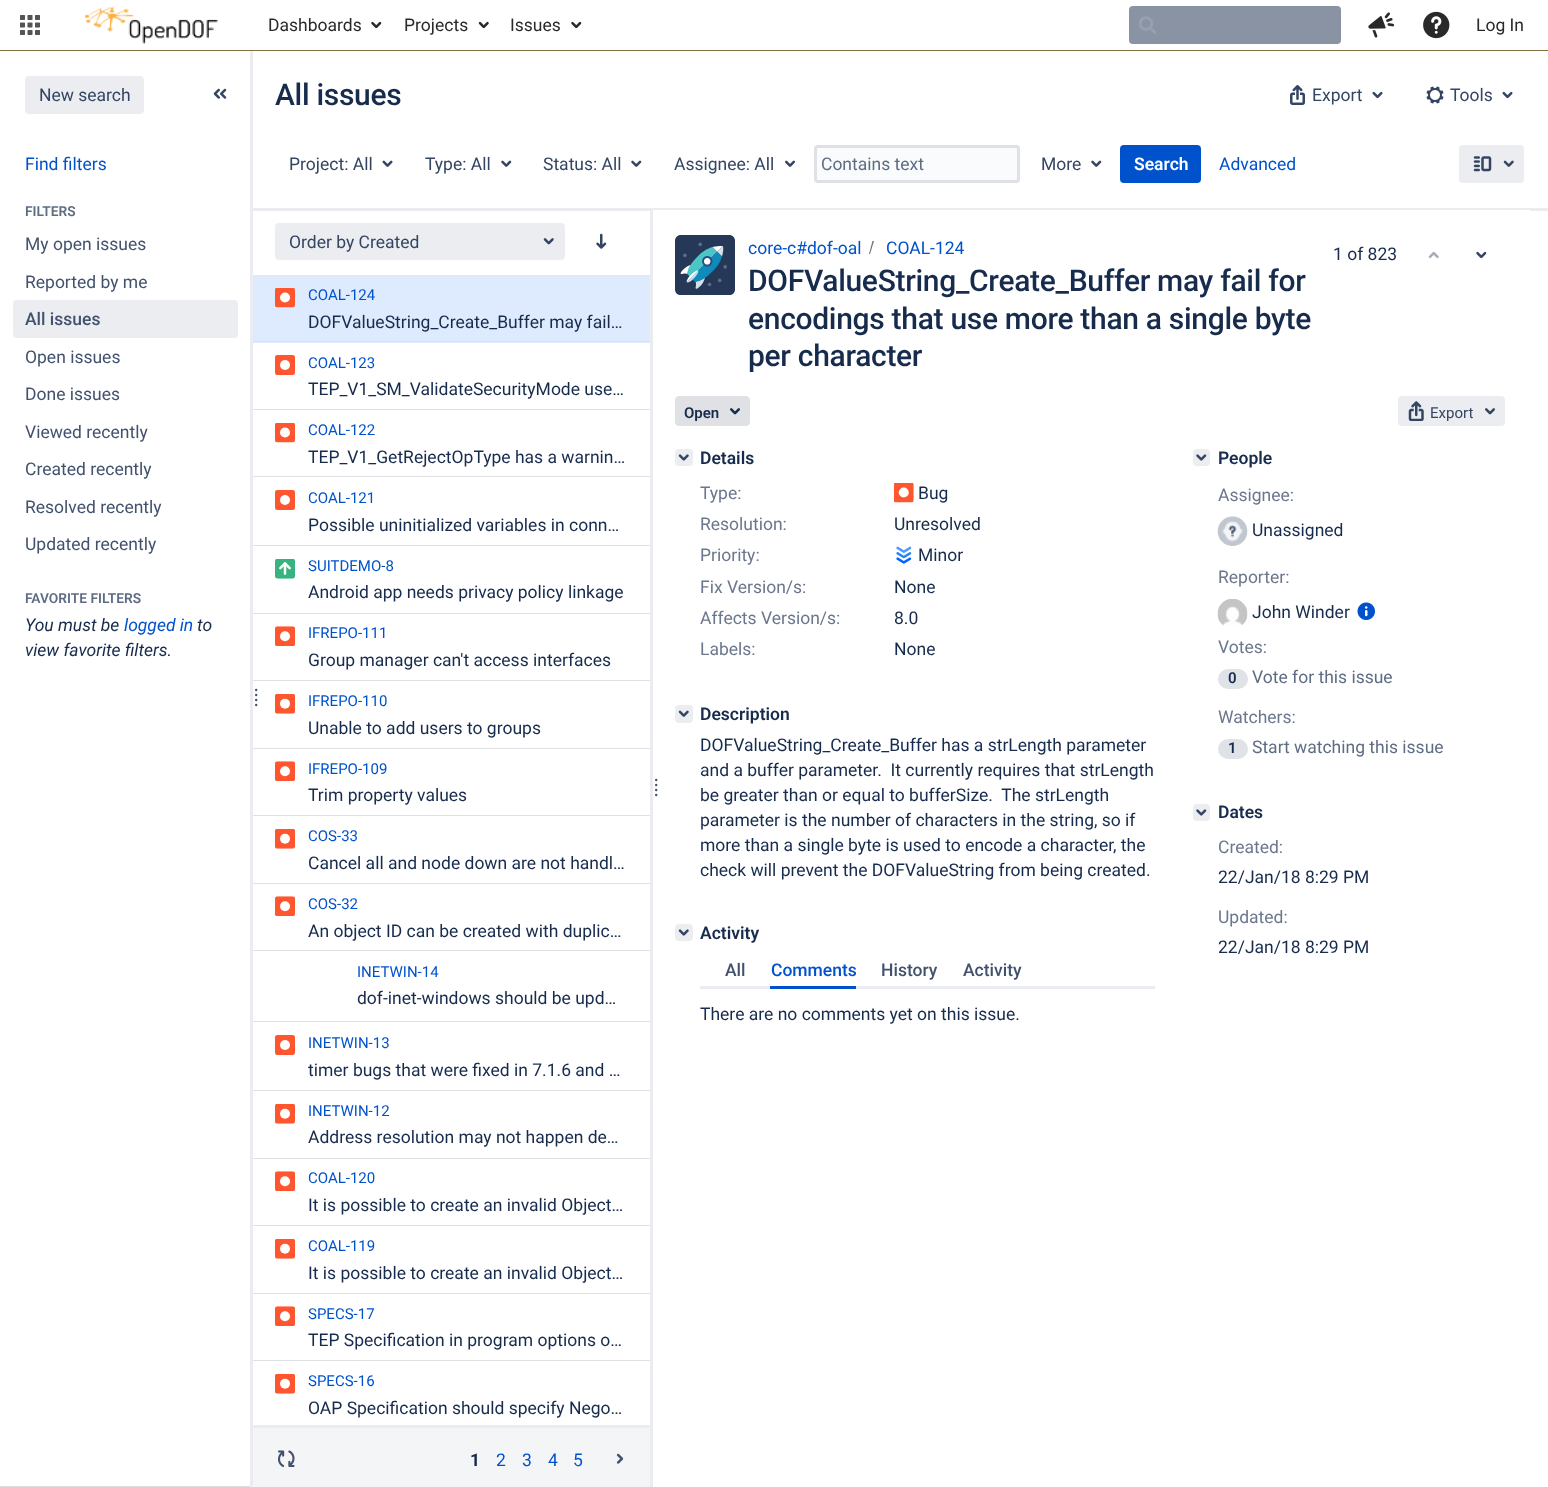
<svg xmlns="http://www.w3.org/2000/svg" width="1548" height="1487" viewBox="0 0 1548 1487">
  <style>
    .t1 { font: 17.5px Roboto; fill: #292929; }
    .t2 { font: 17.5px Roboto; fill: #344563; }
    .t3 { font: 17.5px Roboto; fill: #0052cc; }
    .t4 { font: 600 13.75px Roboto; fill: #5e6c84; }
    .t5 { font: 17.5px Roboto; fill: #42526e; }
    .t6 { font: 500 17.5px Roboto; fill: #42526e; }
    .t7 { font: italic 17.5px Roboto; fill: #172b4d; }
    .t8 { font: italic 17.5px Roboto; fill: #0052cc; }
    .t9 { font: 500 30px Roboto; letter-spacing: -0.3px; fill: #172b4d; }
    .t10 { font: 17.5px Roboto; fill: #5e6c84; }
    .t11 { font: 600 17.5px Roboto; fill: #fff; }
    .t12 { font: 15px Roboto; fill: #0052cc; }
    .t13 { font: 17.5px Roboto; fill: #172b4d; }
    .t14 { font: bold 17.5px Roboto; fill: #172b4d; }
    .t15 { font: 600 15px Roboto; fill: #172b4d; }
    .t16 { font: 15px Roboto; fill: #344563; }
    .t17 { font: 600 17.5px Roboto; fill: #172b4d; }
    .t18 { font: 17.5px Roboto; fill: #6b778c; }
    .t19 { font: 500 17.5px Roboto; fill: #0052cc; }
  </style>
  <rect width="100%" height="100%" fill="#fff"/>
  <rect x="0" y="50" width="1548" height="1" fill="#876d45"/>
  <image x="20" y="15" width="20" height="20" href="images/1.png"/>
  <image x="85" y="7" width="133" height="37" href="images/2.png"/>
  <text x="268" y="31" class="t1">Dashboards</text>
  <image x="371" y="21" width="11" height="8" href="images/3.png"/>
  <text x="404" y="31" class="t1">Projects</text>
  <image x="478" y="21" width="11" height="8" href="images/4.png"/>
  <text x="510" y="31" class="t1">Issues</text>
  <image x="571" y="21" width="11" height="8" href="images/3.png"/>
  <rect x="1129" y="6" width="212" height="38" rx="4" fill="#8993a4"/>
  <image x="1139" y="16" width="17" height="18" href="images/5.png"/>
  <image x="1368" y="12" width="27" height="26" href="images/6.png"/>
  <image x="1423" y="11" width="27" height="28" href="images/7.png"/>
  <text x="1476" y="31" class="t1">Log In</text>
  <rect x="0" y="1486" width="250" height="1" fill="#ddd"/>
  <rect x="25" y="76" width="119" height="38" rx="4" fill="#ebedf0"/>
  <text x="39" y="101" class="t2">New search</text>
  <image x="213" y="88" width="14" height="11" href="images/8.png"/>
  <text x="25" y="170" class="t3">Find filters</text>
  <text x="25" y="216" class="t4">FILTERS</text>
  <text x="25" y="250" class="t5">My open issues</text>
  <text x="25" y="288" class="t5">Reported by me</text>
  <rect x="13" y="300" width="225" height="38" rx="4" fill="#ebedf0"/>
  <text x="25" y="325" class="t6">All issues</text>
  <text x="25" y="363" class="t5">Open issues</text>
  <text x="25" y="400" class="t5">Done issues</text>
  <text x="25" y="438" class="t5">Viewed recently</text>
  <text x="25" y="475" class="t5">Created recently</text>
  <text x="25" y="513" class="t5">Resolved recently</text>
  <text x="25" y="550" class="t5">Updated recently</text>
  <text x="25" y="603" class="t4">FAVORITE FILTERS</text>
  <text x="25" y="631" class="t7">You must be</text>
  <text x="124" y="631" class="t8">logged in</text>
  <text x="197" y="631" class="t7">to</text>
  <text x="25" y="656" class="t7">view favorite filters.</text>
  <rect x="250" y="208" width="1298" height="3" fill="#ebecf0"/>
  <rect x="253" y="275" width="397" height="68" fill="#deebff"/>
  <rect x="250" y="341" width="400" height="1" fill="#dfe1e5"/>
  <rect x="250" y="409" width="400" height="1" fill="#dfe1e5"/>
  <rect x="250" y="476" width="400" height="1" fill="#dfe1e5"/>
  <rect x="250" y="545" width="400" height="1" fill="#dfe1e5"/>
  <rect x="250" y="613" width="400" height="1" fill="#dfe1e5"/>
  <rect x="250" y="680" width="400" height="1" fill="#dfe1e5"/>
  <rect x="250" y="748" width="400" height="1" fill="#dfe1e5"/>
  <rect x="250" y="815" width="400" height="1" fill="#dfe1e5"/>
  <rect x="250" y="883" width="400" height="1" fill="#dfe1e5"/>
  <rect x="250" y="950" width="400" height="1" fill="#dfe1e5"/>
  <rect x="250" y="1021" width="400" height="1" fill="#dfe1e5"/>
  <rect x="250" y="1090" width="400" height="1" fill="#dfe1e5"/>
  <rect x="250" y="1158" width="400" height="1" fill="#dfe1e5"/>
  <rect x="250" y="1225" width="400" height="1" fill="#dfe1e5"/>
  <rect x="250" y="1293" width="400" height="1" fill="#dfe1e5"/>
  <rect x="250" y="1360" width="400" height="1" fill="#dfe1e5"/>
  <rect x="250" y="1425" width="400" height="3" fill="#ebecf0"/>
  <rect x="250" y="1428" width="400" height="59" fill="#f4f5f7"/>
  <rect x="250" y="51" width="3" height="1435" fill="#ebecf0"/>
  <circle cx="256.2" cy="690" r="1.2" fill="#42526e"/>
  <circle cx="256.2" cy="695" r="1.2" fill="#42526e"/>
  <circle cx="256.2" cy="700" r="1.2" fill="#42526e"/>
  <circle cx="256.2" cy="705" r="1.2" fill="#42526e"/>
  <text x="275" y="105" class="t9">All issues</text>
  <image x="1290" y="85" width="15" height="20" href="images/9.png"/>
  <text x="1312" y="101" class="t2">Export</text>
  <image x="1372" y="91" width="11" height="8" href="images/10.png"/>
  <image x="1426" y="86" width="18" height="18" href="images/11.png"/>
  <text x="1450" y="101" class="t2">Tools</text>
  <image x="1502" y="91" width="11" height="8" href="images/10.png"/>
  <text x="289" y="170" class="t2">Project: All</text>
  <image x="382" y="160" width="11" height="7" href="images/12.png"/>
  <text x="425" y="170" class="t2">Type: All</text>
  <image x="501" y="160" width="11" height="7" href="images/13.png"/>
  <text x="543" y="170" class="t2">Status: All</text>
  <image x="631" y="160" width="11" height="7" href="images/13.png"/>
  <text x="674" y="170" class="t2">Assignee: All</text>
  <image x="785" y="160" width="10" height="7" href="images/14.png"/>
  <rect x="815.5" y="146.5" width="203" height="35" rx="2.5" fill="#fafbfc" stroke="#dfe1e6" stroke-width="3"/>
  <text x="821" y="170" class="t10">Contains text</text>
  <text x="1041" y="170" class="t2">More</text>
  <image x="1091" y="160" width="11" height="7" href="images/13.png"/>
  <rect x="1120" y="145" width="81" height="38" rx="4" fill="#0052cc"/>
  <text x="1134" y="170" class="t11">Search</text>
  <text x="1219" y="170" class="t3">Advanced</text>
  <rect x="1459" y="145" width="65" height="38" rx="4" fill="#ebedf0"/>
  <image x="1473" y="156" width="19" height="16" href="images/15.png"/>
  <image x="1503" y="160" width="11" height="7" href="images/16.png"/>
  <rect x="275" y="223" width="290" height="37" rx="4" fill="#ebedf0"/>
  <text x="289" y="248" class="t2">Order by Created</text>
  <image x="543" y="238" width="11" height="7" href="images/17.png"/>
  <image x="596" y="233" width="11" height="16" href="images/18.png"/>
  <image x="275" y="288" width="20" height="20" href="images/19.png"/>
  <text x="308" y="300" class="t12">COAL-124</text>
  <text x="308" y="328" class="t13">DOFValueString_Create_Buffer may fail…</text>
  <image x="275" y="355" width="20" height="20" href="images/20.png"/>
  <text x="308" y="368" class="t12">COAL-123</text>
  <text x="308" y="395" class="t13">TEP_V1_SM_ValidateSecurityMode use…</text>
  <image x="275" y="423" width="20" height="20" href="images/21.png"/>
  <text x="308" y="435" class="t12">COAL-122</text>
  <text x="308" y="463" class="t13">TEP_V1_GetRejectOpType has a warnin…</text>
  <image x="275" y="490" width="20" height="20" href="images/22.png"/>
  <text x="308" y="503" class="t12">COAL-121</text>
  <text x="308" y="531" class="t13">Possible uninitialized variables in conn…</text>
  <image x="275" y="559" width="20" height="20" href="images/23.png"/>
  <text x="308" y="571" class="t12">SUITDEMO-8</text>
  <text x="308" y="598" class="t13">Android app needs privacy policy linkage</text>
  <image x="275" y="626" width="20" height="20" href="images/24.png"/>
  <text x="308" y="638" class="t12">IFREPO-111</text>
  <text x="308" y="666" class="t13">Group manager can't access interfaces</text>
  <image x="275" y="694" width="20" height="20" href="images/25.png"/>
  <text x="308" y="706" class="t12">IFREPO-110</text>
  <text x="308" y="734" class="t13">Unable to add users to groups</text>
  <image x="275" y="761" width="20" height="20" href="images/26.png"/>
  <text x="308" y="774" class="t12">IFREPO-109</text>
  <text x="308" y="801" class="t13">Trim property values</text>
  <image x="275" y="829" width="20" height="20" href="images/25.png"/>
  <text x="308" y="841" class="t12">COS-33</text>
  <text x="308" y="869" class="t13">Cancel all and node down are not handl…</text>
  <image x="275" y="896" width="20" height="20" href="images/24.png"/>
  <text x="308" y="909" class="t12">COS-32</text>
  <text x="308" y="937" class="t13">An object ID can be created with duplic…</text>
  <text x="357" y="977" class="t12">INETWIN-14</text>
  <text x="357" y="1004" class="t13">dof-inet-windows should be upd…</text>
  <image x="275" y="1035" width="20" height="20" href="images/20.png"/>
  <text x="308" y="1048" class="t12">INETWIN-13</text>
  <text x="308" y="1076" class="t13">timer bugs that were fixed in 7.1.6 and …</text>
  <image x="275" y="1104" width="20" height="20" href="images/25.png"/>
  <text x="308" y="1116" class="t12">INETWIN-12</text>
  <text x="308" y="1143" class="t13">Address resolution may not happen de…</text>
  <image x="275" y="1171" width="20" height="20" href="images/24.png"/>
  <text x="308" y="1183" class="t12">COAL-120</text>
  <text x="308" y="1211" class="t13">It is possible to create an invalid Object…</text>
  <image x="275" y="1239" width="20" height="20" href="images/25.png"/>
  <text x="308" y="1251" class="t12">COAL-119</text>
  <text x="308" y="1279" class="t13">It is possible to create an invalid Object…</text>
  <image x="275" y="1306" width="20" height="20" href="images/24.png"/>
  <text x="308" y="1319" class="t12">SPECS-17</text>
  <text x="308" y="1346" class="t13">TEP Specification in program options o…</text>
  <image x="275" y="1374" width="20" height="20" href="images/25.png"/>
  <text x="308" y="1386" class="t12">SPECS-16</text>
  <text x="308" y="1414" class="t13">OAP Specification should specify Nego…</text>
  <image x="278" y="1450" width="17" height="17" href="images/27.png"/>
  <text x="470" y="1466" class="t14">1</text>
  <text x="496" y="1466" class="t3">2</text>
  <text x="522" y="1466" class="t3">3</text>
  <text x="548" y="1466" class="t3">4</text>
  <text x="573" y="1466" class="t3">5</text>
  <image x="616" y="1453" width="8" height="11" href="images/28.png"/>
  <rect x="650" y="210" width="3" height="1277" fill="#ebecf0"/>
  <circle cx="656.2" cy="780" r="1.2" fill="#42526e"/>
  <circle cx="656.2" cy="785" r="1.2" fill="#42526e"/>
  <circle cx="656.2" cy="790" r="1.2" fill="#42526e"/>
  <circle cx="656.2" cy="795" r="1.2" fill="#42526e"/>
  <rect x="653" y="210" width="877" height="1" fill="#fff"/>
  <image x="675" y="235" width="60" height="60" href="images/29.png"/>
  <text x="748" y="254" class="t3">core-c#dof-oal</text>
  <path d="M870 254L874 241H872.5L869 254Z" fill="#707070"/>
  <text x="886" y="254" class="t3">COAL-124</text>
  <text x="748" y="291" class="t9">DOFValueString_Create_Buffer may fail for</text>
  <text x="748" y="329" class="t9">encodings that use more than a single byte</text>
  <text x="748" y="366" class="t9">per character</text>
  <rect x="675.5" y="396.5" width="74" height="29" rx="3.5" fill="#dfe1e5" stroke="#dfe1e5"/>
  <text x="684" y="418" class="t15">Open</text>
  <image x="730" y="408" width="10" height="7" href="images/30.png"/>
  <rect x="1398" y="396" width="107" height="30" rx="4" fill="#ebedf0"/>
  <image x="1408" y="401" width="16" height="20" href="images/31.png"/>
  <text x="1430" y="418" class="t16">Export</text>
  <image x="1485" y="408" width="10" height="7" href="images/32.png"/>
  <rect x="675" y="449" width="18" height="17" rx="4" fill="#ebedf0"/>
  <image x="678" y="454" width="11" height="7" href="images/33.png"/>
  <text x="700" y="464" class="t17">Details</text>
  <text x="700" y="499" class="t18">Type:</text>
  <image x="894" y="483" width="20" height="20" href="images/34.png"/>
  <text x="918" y="499" class="t13">Bug</text>
  <text x="700" y="530" class="t18">Resolution:</text>
  <text x="894" y="530" class="t13">Unresolved</text>
  <text x="700" y="561" class="t18">Priority:</text>
  <image x="896" y="546" width="16" height="18" href="images/35.png"/>
  <text x="918" y="561" class="t13">Minor</text>
  <text x="700" y="593" class="t18">Fix Version/s:</text>
  <text x="894" y="593" class="t13">None</text>
  <text x="700" y="624" class="t18">Affects Version/s:</text>
  <text x="894" y="624" class="t13">8.0</text>
  <text x="700" y="655" class="t18">Labels:</text>
  <text x="894" y="655" class="t13">None</text>
  <rect x="675" y="705" width="18" height="18" rx="4" fill="#ebedf0"/>
  <image x="678" y="710" width="11" height="7" href="images/36.png"/>
  <text x="700" y="720" class="t17">Description</text>
  <text x="700" y="751" class="t13">DOFValueString_Create_Buffer has a strLength parameter</text>
  <text x="700" y="776" class="t13" xml:space="preserve">and a buffer parameter.  It currently requires that strLength</text>
  <text x="700" y="801" class="t13" xml:space="preserve">be greater than or equal to bufferSize.  The strLength</text>
  <text x="700" y="826" class="t13">parameter is the number of characters in the string, so if</text>
  <text x="700" y="851" class="t13">more than a single byte is used to encode a character, the</text>
  <text x="700" y="876" class="t13">check will prevent the DOFValueString from being created.</text>
  <rect x="675" y="924" width="18" height="17" rx="4" fill="#ebedf0"/>
  <image x="678" y="929" width="11" height="7" href="images/33.png"/>
  <text x="700" y="939" class="t17">Activity</text>
  <text x="725" y="976" class="t6">All</text>
  <text x="771" y="976" class="t19">Comments</text>
  <rect x="700" y="986" width="455" height="3" fill="#ebecf1"/>
  <rect x="770" y="986" width="86" height="3" fill="#0052cc"/>
  <text x="881" y="976" class="t6">History</text>
  <text x="963" y="976" class="t6">Activity</text>
  <text x="700" y="1020" class="t13">There are no comments yet on this issue.</text>
  <rect x="1193" y="449" width="17" height="17" rx="4" fill="#ebedf0"/>
  <image x="1196" y="454" width="11" height="7" href="images/37.png"/>
  <text x="1218" y="464" class="t17">People</text>
  <text x="1218" y="501" class="t18">Assignee:</text>
  <image x="1217" y="516" width="31" height="30" href="images/38.png"/>
  <text x="1252" y="536" class="t13">Unassigned</text>
  <text x="1218" y="583" class="t18">Reporter:</text>
  <image x="1217" y="599" width="31" height="27" href="images/39.png"/>
  <text x="1252" y="618" class="t13">John Winder</text>
  <image x="1357" y="602" width="18" height="18" href="images/40.png"/>
  <text x="1218" y="653" class="t18">Votes:</text>
  <rect x="1218" y="669" width="30" height="20" rx="10" fill="#dfe2e6"/>
  <text x="1228" y="683" class="t15">0</text>
  <text x="1252" y="683" class="t10">Vote for this issue</text>
  <text x="1218" y="723" class="t18">Watchers:</text>
  <rect x="1218" y="739" width="30" height="20" rx="10" fill="#dfe2e6"/>
  <text x="1228" y="753" class="t15">1</text>
  <text x="1252" y="753" class="t10">Start watching this issue</text>
  <rect x="1193" y="804" width="17" height="17" rx="4" fill="#ebedf0"/>
  <image x="1196" y="809" width="11" height="7" href="images/37.png"/>
  <text x="1218" y="818" class="t17">Dates</text>
  <text x="1218" y="853" class="t18">Created:</text>
  <text x="1218" y="883" class="t13">22/Jan/18 8:29 PM</text>
  <text x="1218" y="923" class="t18">Updated:</text>
  <text x="1218" y="953" class="t13">22/Jan/18 8:29 PM</text>
  <text x="1333" y="260" class="t13">1 of 823</text>
  <image x="1428" y="251" width="11" height="8" href="images/41.png"/>
  <image x="1476" y="251" width="11" height="8" href="images/42.png"/>
</svg>
